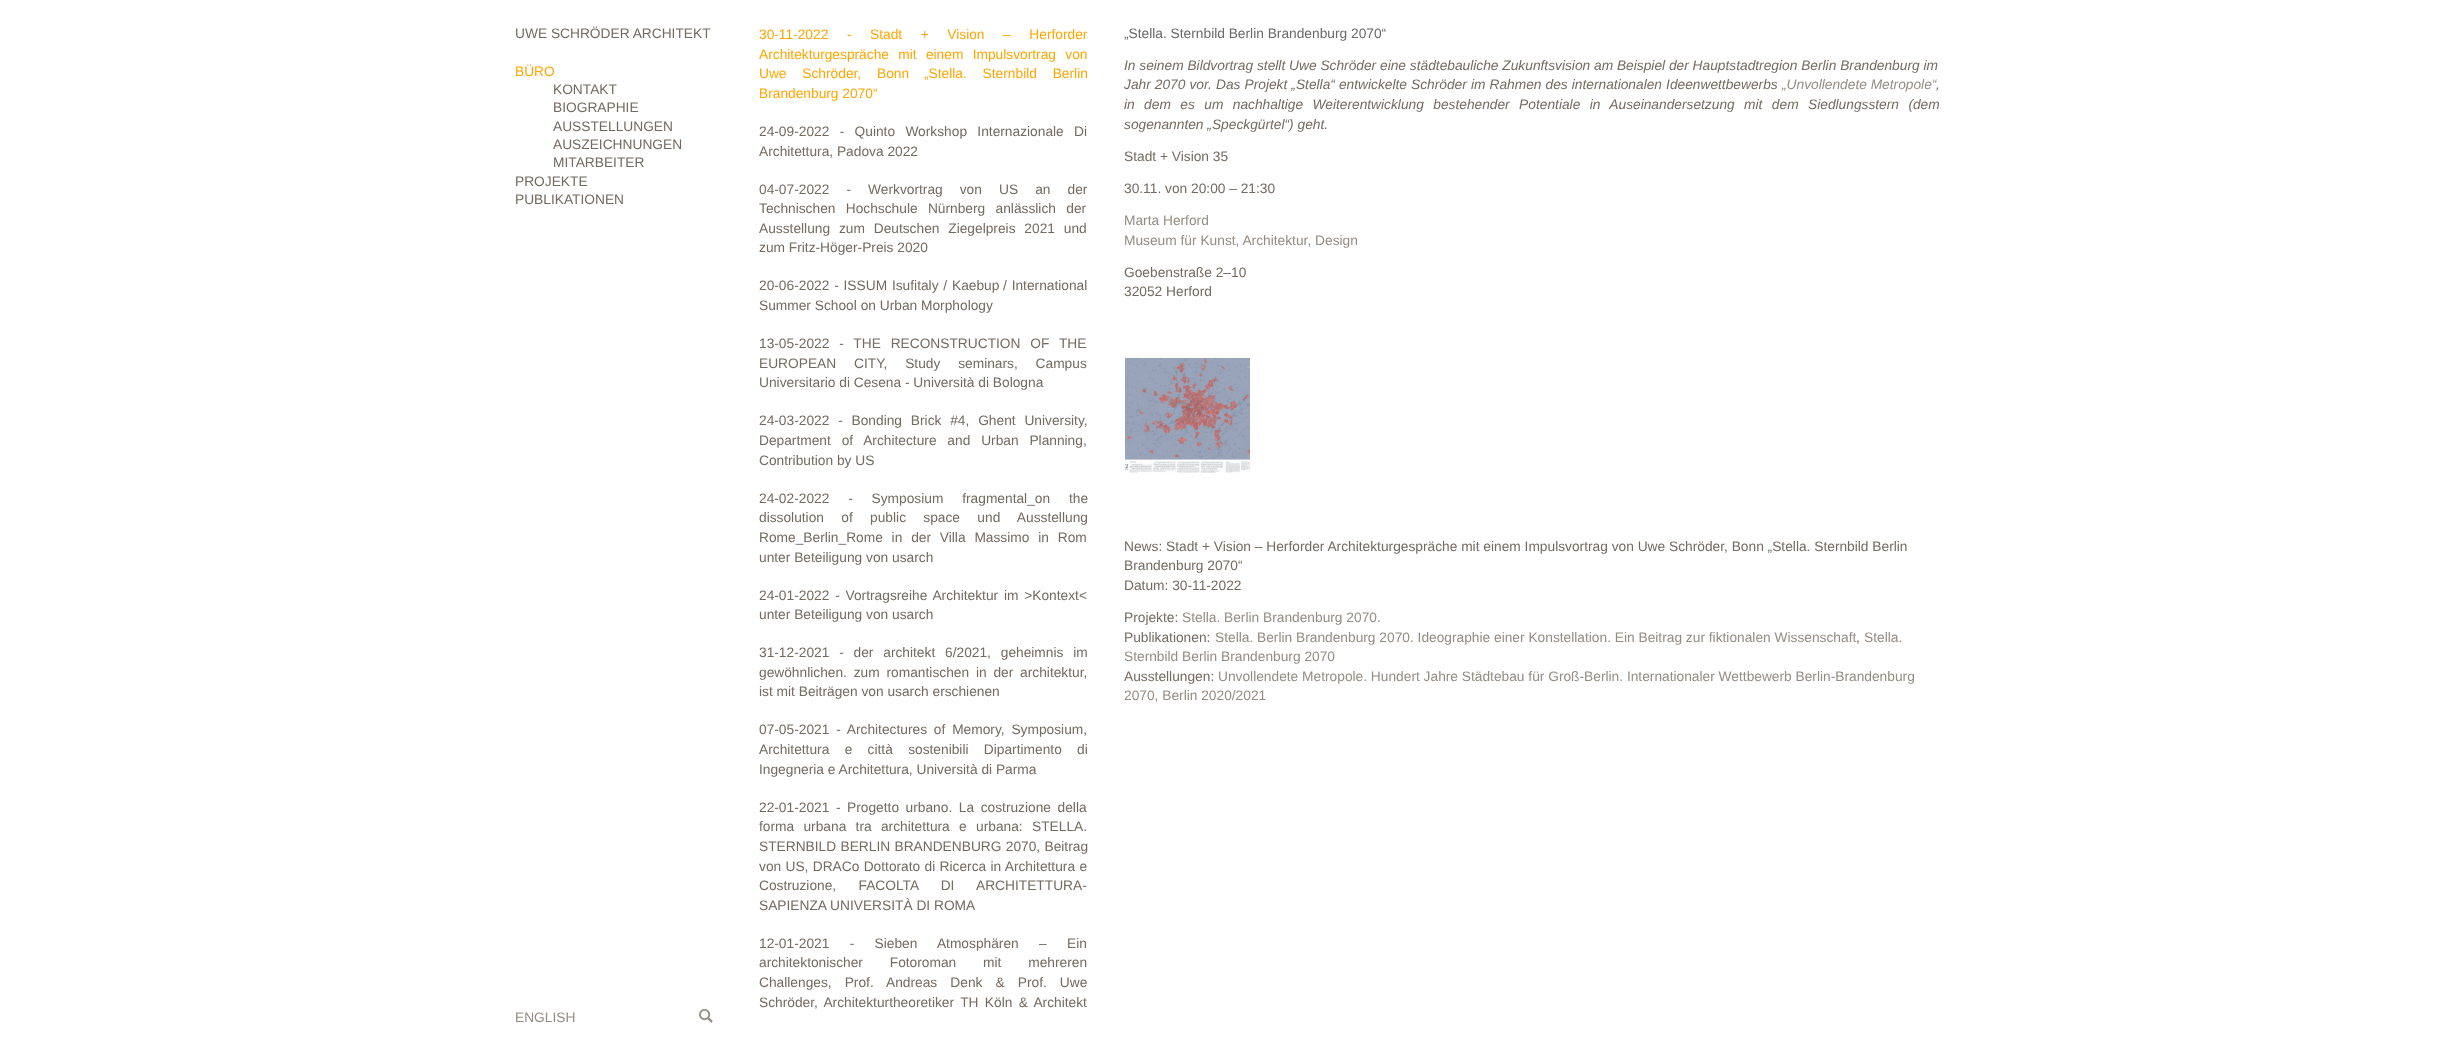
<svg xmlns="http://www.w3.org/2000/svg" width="2454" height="1040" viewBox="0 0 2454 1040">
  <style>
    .t1 { font: 13.75px Liberation Sans; fill: #746a60; }
    .t2 { font: 13.75px Liberation Sans; fill: #ffa500; }
    .t3 { font: 13.75px Liberation Sans; fill: #958c83; }
    .t4 { font: 13.75px Liberation Sans; fill: #696969; }
    .t5 { font: italic 13.75px Liberation Sans; fill: #746a60; }
    .t6 { font: italic 13.75px Liberation Sans; fill: #958c83; }
  </style>
  <rect width="100%" height="100%" fill="#fff"/>
  <text x="515" y="38" class="t1">UWE SCHRÖDER ARCHITEKT</text>
  <text x="515" y="76" class="t2">BÜRO</text>
  <text x="553" y="94" class="t1">KONTAKT</text>
  <text x="553" y="112" class="t1">BIOGRAPHIE</text>
  <text x="553" y="131" class="t1">AUSSTELLUNGEN</text>
  <text x="553" y="149" class="t1">AUSZEICHNUNGEN</text>
  <text x="553" y="167" class="t1">MITARBEITER</text>
  <text x="515" y="186" class="t1">PROJEKTE</text>
  <text x="515" y="204" class="t1">PUBLIKATIONEN</text>
  <text x="515" y="1022" class="t3">ENGLISH</text>
  <image x="699" y="1009" width="14" height="14" href="images/1.png"/>
  <text x="759" y="39" word-spacing="14.75" class="t2">30-11-2022 - Stadt + Vision – Herforder</text>
  <text x="759" y="59" word-spacing="5.5" class="t2">Architekturgespräche mit einem Impulsvortrag von</text>
  <text x="759" y="78" word-spacing="12" class="t2">Uwe Schröder, Bonn</text>
  <text x="924" y="78" word-spacing="12" class="t2">„Stella. Sternbild Berlin</text>
  <text x="759" y="98" class="t2">Brandenburg 2070“</text>
  <text x="759" y="136" word-spacing="6.5" class="t1">24-09-2022 - Quinto Workshop Internazionale Di</text>
  <text x="759" y="156" class="t1">Architettura, Padova 2022</text>
  <text x="759" y="194" word-spacing="13.25" class="t1">04-07-2022 - Werkvortrag von US an der</text>
  <text x="759" y="213" word-spacing="6.5" class="t1">Technischen Hochschule Nürnberg anlässlich der</text>
  <text x="759" y="233" word-spacing="5" class="t1">Ausstellung zum Deutschen Ziegelpreis 2021 und</text>
  <text x="759" y="252" class="t1">zum Fritz-Höger-Preis 2020</text>
  <text x="759" y="290" word-spacing="1" class="t1">20-06-2022 - ISSUM Isufitaly / Kaebup</text>
  <text x="1003" y="290" word-spacing="1" class="t1">/ International</text>
  <text x="759" y="310" class="t1">Summer School on Urban Morphology</text>
  <text x="759" y="348" word-spacing="6" class="t1">13-05-2022 - THE RECONSTRUCTION OF THE</text>
  <text x="759" y="368" word-spacing="14" class="t1">EUROPEAN CITY, Study seminars, Campus</text>
  <text x="759" y="387" class="t1">Universitario di Cesena - Università di Bologna</text>
  <text x="759" y="425" word-spacing="5" class="t1">24-03-2022 - Bonding Brick #4, Ghent University,</text>
  <text x="759" y="445" word-spacing="7" class="t1">Department of Architecture and Urban Planning,</text>
  <text x="759" y="465" class="t1">Contribution by US</text>
  <text x="759" y="503" word-spacing="15" class="t1">24-02-2022 - Symposium fragmental_on the</text>
  <text x="759" y="522" word-spacing="13.5" class="t1">dissolution of public space und Ausstellung</text>
  <text x="759" y="542" word-spacing="5" class="t1">Rome_Berlin_Rome in der Villa Massimo in Rom</text>
  <text x="759" y="562" class="t1">unter Beteiligung von usarch</text>
  <text x="759" y="600" word-spacing="2" class="t1">24-01-2022 - Vortragsreihe Architektur im &gt;Kontext&lt;</text>
  <text x="759" y="619" class="t1">unter Beteiligung von usarch</text>
  <text x="759" y="657" word-spacing="6" class="t1">31-12-2021 - der architekt 6/2021, geheimnis im</text>
  <text x="759" y="677" word-spacing="3" class="t1">gewöhnlichen. zum romantischen in der architektur,</text>
  <text x="759" y="696" class="t1">ist mit Beiträgen von usarch erschienen</text>
  <text x="759" y="734" word-spacing="3" class="t1">07-05-2021 - Architectures of Memory, Symposium,</text>
  <text x="759" y="754" word-spacing="11.5" class="t1">Architettura e città sostenibili Dipartimento di</text>
  <text x="759" y="774" class="t1">Ingegneria e Architettura, Università di Parma</text>
  <text x="759" y="812" word-spacing="2.75" class="t1">22-01-2021 - Progetto urbano. La costruzione della</text>
  <text x="759" y="831" word-spacing="5.5" class="t1">forma urbana tra architettura e urbana: STELLA.</text>
  <text x="759" y="851" word-spacing="0.5" class="t1">STERNBILD BERLIN BRANDENBURG 2070, Beitrag</text>
  <text x="759" y="871" word-spacing="0.5" class="t1">von US, DRACo Dottorato di Ricerca in Architettura e</text>
  <text x="759" y="890" word-spacing="18.5" class="t1">Costruzione, FACOLTA DI ARCHITETTURA-</text>
  <text x="759" y="910" class="t1">SAPIENZA UNIVERSITÀ DI ROMA</text>
  <text x="759" y="948" word-spacing="16.5" class="t1">12-01-2021 - Sieben Atmosphären – Ein</text>
  <text x="759" y="967" word-spacing="23" class="t1">architektonischer Fotoroman mit mehreren</text>
  <text x="759" y="987" word-spacing="9.25" class="t1">Challenges, Prof. Andreas Denk &amp; Prof. Uwe</text>
  <text x="759" y="1007" word-spacing="2.5" class="t1">Schröder, Architekturtheoretiker TH Köln &amp; Architekt</text>
  <text x="1124" y="38" class="t4">„Stella. Sternbild Berlin Brandenburg 2070“</text>
  <text x="1124" y="70" class="t5">In seinem Bildvortrag stellt Uwe Schröder eine städtebauliche Zukunftsvision am Beispiel der Hauptstadtregion Berlin Brandenburg im</text>
  <text x="1124" y="89" word-spacing="0.25" class="t5">Jahr 2070 vor. Das Projekt „Stella“ entwickelte Schröder im Rahmen des internationalen Ideenwettbewerbs</text>
  <text x="1782" y="89" class="t6">„Unvollendete Metropole“</text>
  <text x="1936" y="89" class="t5">,</text>
  <text x="1124" y="109" word-spacing="5.6" class="t5">in dem es um nachhaltige Weiterentwicklung bestehender Potentiale in Auseinandersetzung mit dem Siedlungsstern (dem</text>
  <text x="1124" y="129" class="t5">sogenannten „Speckgürtel“) geht.</text>
  <text x="1124" y="161" class="t1">Stadt + Vision 35</text>
  <text x="1124" y="193" class="t1">30.11. von 20:00 – 21:30</text>
  <text x="1124" y="225" class="t3">Marta Herford</text>
  <text x="1124" y="245" class="t3">Museum für Kunst, Architektur, Design</text>
  <text x="1124" y="277" class="t1">Goebenstraße 2–10</text>
  <text x="1124" y="296" class="t1">32052 Herford</text>
  <image x="1125" y="355" width="125" height="118" href="images/2.png"/>
  <text x="1124" y="551" class="t1">News: Stadt + Vision – Herforder Architekturgespräche mit einem Impulsvortrag von Uwe Schröder, Bonn „Stella. Sternbild Berlin</text>
  <text x="1124" y="570" class="t1">Brandenburg 2070“</text>
  <text x="1124" y="590" class="t1">Datum: 30-11-2022</text>
  <text x="1124" y="622" class="t1">Projekte:</text>
  <text x="1182" y="622" class="t3">Stella. Berlin Brandenburg 2070.</text>
  <text x="1124" y="642" class="t1">Publikationen:</text>
  <text x="1215" y="642" class="t3">Stella. Berlin Brandenburg 2070. Ideographie einer Konstellation. Ein Beitrag zur fiktionalen Wissenschaft</text>
  <text x="1856" y="642" class="t1">,</text>
  <text x="1864" y="642" class="t3">Stella.</text>
  <text x="1124" y="661" class="t3">Sternbild Berlin Brandenburg 2070</text>
  <text x="1124" y="681" class="t1">Ausstellungen:</text>
  <text x="1218" y="681" class="t3">Unvollendete Metropole. Hundert Jahre Städtebau für Groß-Berlin. Internationaler Wettbewerb Berlin-Brandenburg</text>
  <text x="1124" y="700" class="t3">2070, Berlin 2020/2021</text>
</svg>
